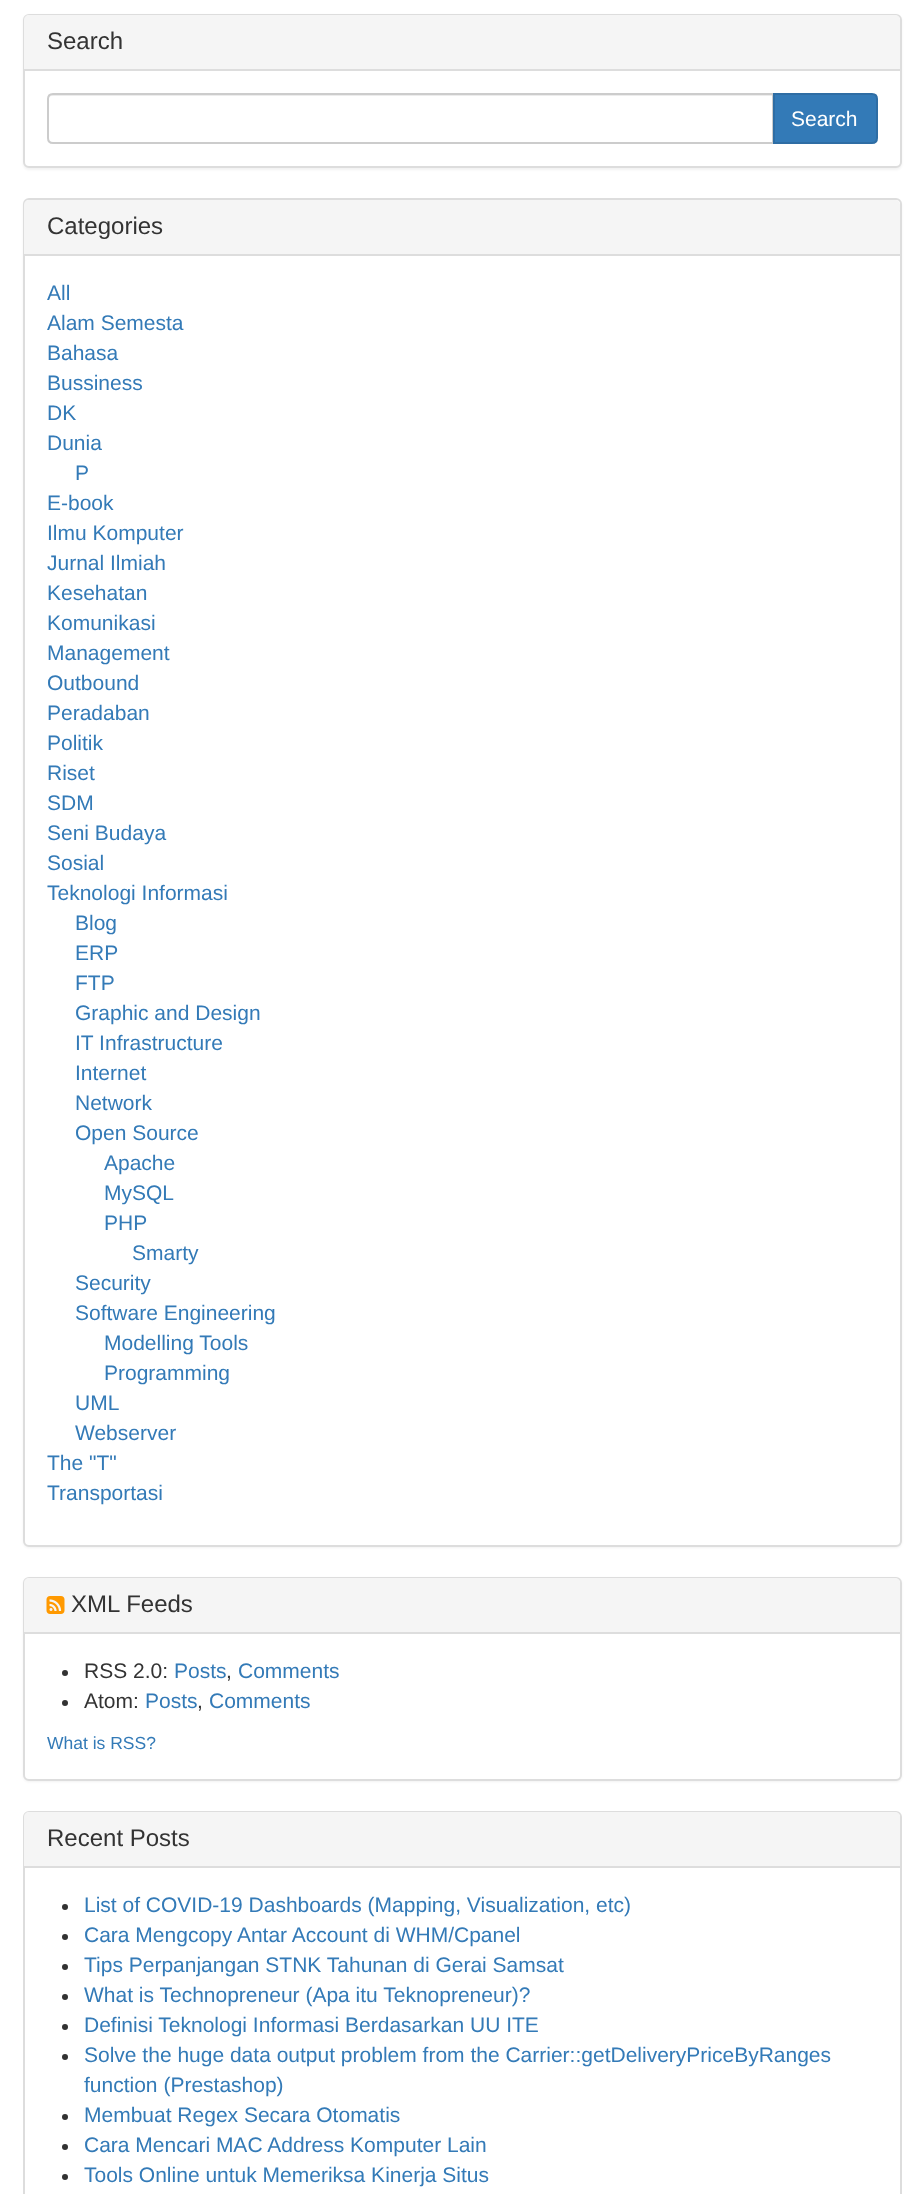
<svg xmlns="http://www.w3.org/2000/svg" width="923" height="2194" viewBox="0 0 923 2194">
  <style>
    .t1 { font: 24px Liberation Sans; fill: #333; }
    .t2 { font: 21px Liberation Sans; fill: #fff; }
    .t3 { font: 21px Liberation Sans; fill: #337ab7; }
    .t4 { font: 21px Liberation Sans; fill: #333; }
    .t5 { font: 17.5px Liberation Sans; fill: #337ab7; }
  </style>
  <rect width="100%" height="100%" fill="#fff"/>
  <rect x="23" y="15" width="879" height="155" rx="6" fill="#0000000d" filter="blur(1px)"/>
  <rect x="24" y="15" width="877" height="152" rx="5" fill="#fff" stroke="#ddd" stroke-width="2"/>
  <path d="M29 15H895C898 15 900 17 900 20V71H24V20C24 17 26 15 29 15Z" fill="#f5f5f5"/>
  <rect x="24" y="69" width="876" height="2" fill="#ddd"/>
  <text x="47" y="49" class="t1">Search</text>
  <path d="M52 96H772V143H773V95H53C50 95 48 97 48 100C48 98 50 96 52 96Z" fill="#ececec"/>
  <path d="M53 94H773V143H53C50 143 48 141 48 138V99C48 96 50 94 53 94Z" fill="none" stroke="#ccc" stroke-width="2"/>
  <path d="M774 94H872C875 94 877 96 877 99V138C877 141 875 143 872 143H774Z" fill="#337ab7" stroke="#2e6da4" stroke-width="2"/>
  <text x="791" y="126" class="t2">Search</text>
  <rect x="23" y="200" width="879" height="1348" rx="6" fill="#0000000d" filter="blur(1px)"/>
  <rect x="24" y="199" width="877" height="1347" rx="5" fill="#fff" stroke="#ddd" stroke-width="2"/>
  <path d="M29 200H895C898 200 900 202 900 205V255H24V205C24 202 26 200 29 200Z" fill="#f5f5f5"/>
  <rect x="24" y="254" width="876" height="2" fill="#ddd"/>
  <text x="47" y="234" class="t1">Categories</text>
  <text x="47" y="300" class="t3">All</text>
  <text x="47" y="330" class="t3">Alam Semesta</text>
  <text x="47" y="360" class="t3">Bahasa</text>
  <text x="47" y="390" class="t3">Bussiness</text>
  <text x="47" y="420" class="t3">DK</text>
  <text x="47" y="450" class="t3">Dunia</text>
  <text x="75" y="480" class="t3">P</text>
  <text x="47" y="510" class="t3">E-book</text>
  <text x="47" y="540" class="t3">Ilmu Komputer</text>
  <text x="47" y="570" class="t3">Jurnal Ilmiah</text>
  <text x="47" y="600" class="t3">Kesehatan</text>
  <text x="47" y="630" class="t3">Komunikasi</text>
  <text x="47" y="660" class="t3">Management</text>
  <text x="47" y="690" class="t3">Outbound</text>
  <text x="47" y="720" class="t3">Peradaban</text>
  <text x="47" y="750" class="t3">Politik</text>
  <text x="47" y="780" class="t3">Riset</text>
  <text x="47" y="810" class="t3">SDM</text>
  <text x="47" y="840" class="t3">Seni Budaya</text>
  <text x="47" y="870" class="t3">Sosial</text>
  <text x="47" y="900" class="t3">Teknologi Informasi</text>
  <text x="75" y="930" class="t3">Blog</text>
  <text x="75" y="960" class="t3">ERP</text>
  <text x="75" y="990" class="t3">FTP</text>
  <text x="75" y="1020" class="t3">Graphic and Design</text>
  <text x="75" y="1050" class="t3">IT Infrastructure</text>
  <text x="75" y="1080" class="t3">Internet</text>
  <text x="75" y="1110" class="t3">Network</text>
  <text x="75" y="1140" class="t3">Open Source</text>
  <text x="104" y="1170" class="t3">Apache</text>
  <text x="104" y="1200" class="t3">MySQL</text>
  <text x="104" y="1230" class="t3">PHP</text>
  <text x="132" y="1260" class="t3">Smarty</text>
  <text x="75" y="1290" class="t3">Security</text>
  <text x="75" y="1320" class="t3">Software Engineering</text>
  <text x="104" y="1350" class="t3">Modelling Tools</text>
  <text x="104" y="1380" class="t3">Programming</text>
  <text x="75" y="1410" class="t3">UML</text>
  <text x="75" y="1440" class="t3">Webserver</text>
  <text x="47" y="1470" class="t3">The "T"</text>
  <text x="47" y="1500" class="t3">Transportasi</text>
  <rect x="23" y="1578" width="879" height="204" rx="6" fill="#0000000d" filter="blur(1px)"/>
  <rect x="24" y="1578" width="877" height="202" rx="5" fill="#fff" stroke="#ddd" stroke-width="2"/>
  <path d="M29 1578H895C898 1578 900 1580 900 1583V1634H24V1583C24 1580 26 1578 29 1578Z" fill="#f5f5f5"/>
  <rect x="24" y="1632" width="876" height="2" fill="#ddd"/>
  <image x="46" y="1596" width="19" height="18" href="images/1.png"/>
  <text x="71" y="1612" class="t1">XML Feeds</text>
  <circle cx="65" cy="1673" r="3" fill="#333"/>
  <text x="84" y="1678" class="t4">RSS 2.0:</text>
  <text x="174" y="1678" class="t3">Posts</text>
  <text x="238" y="1678" class="t3">Comments</text>
  <text x="226" y="1678" class="t4">,</text>
  <circle cx="65" cy="1703" r="3" fill="#333"/>
  <text x="84" y="1708" class="t4">Atom:</text>
  <text x="145" y="1708" class="t3">Posts</text>
  <text x="209" y="1708" class="t3">Comments</text>
  <text x="197" y="1708" class="t4">,</text>
  <text x="47" y="1749" class="t5">What is RSS?</text>
  <rect x="24" y="1812" width="877" height="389" rx="5" fill="none" stroke="#ddd" stroke-width="2"/>
  <path d="M29 1812H895C898 1812 900 1814 900 1817V1868H24V1817C24 1814 26 1812 29 1812Z" fill="#f5f5f5"/>
  <rect x="24" y="1866" width="876" height="2" fill="#ddd"/>
  <text x="47" y="1846" class="t1">Recent Posts</text>
  <circle cx="65" cy="1907" r="3" fill="#333"/>
  <text x="84" y="1912" class="t3">List of COVID-19 Dashboards (Mapping, Visualization, etc)</text>
  <circle cx="65" cy="1937" r="3" fill="#333"/>
  <text x="84" y="1942" class="t3">Cara Mengcopy Antar Account di WHM/Cpanel</text>
  <circle cx="65" cy="1967" r="3" fill="#333"/>
  <text x="84" y="1972" class="t3">Tips Perpanjangan STNK Tahunan di Gerai Samsat</text>
  <circle cx="65" cy="1997" r="3" fill="#333"/>
  <text x="84" y="2002" class="t3">What is Technopreneur (Apa itu Teknopreneur)?</text>
  <circle cx="65" cy="2027" r="3" fill="#333"/>
  <text x="84" y="2032" class="t3">Definisi Teknologi Informasi Berdasarkan UU ITE</text>
  <circle cx="65" cy="2057" r="3" fill="#333"/>
  <text x="84" y="2062" class="t3">Solve the huge data output problem from the Carrier::getDeliveryPriceByRanges</text>
  <text x="84" y="2092" class="t3">function (Prestashop)</text>
  <circle cx="65" cy="2117" r="3" fill="#333"/>
  <text x="84" y="2122" class="t3">Membuat Regex Secara Otomatis</text>
  <circle cx="65" cy="2147" r="3" fill="#333"/>
  <text x="84" y="2152" class="t3">Cara Mencari MAC Address Komputer Lain</text>
  <circle cx="65" cy="2177" r="3" fill="#333"/>
  <text x="84" y="2182" class="t3">Tools Online untuk Memeriksa Kinerja Situs</text>
</svg>
